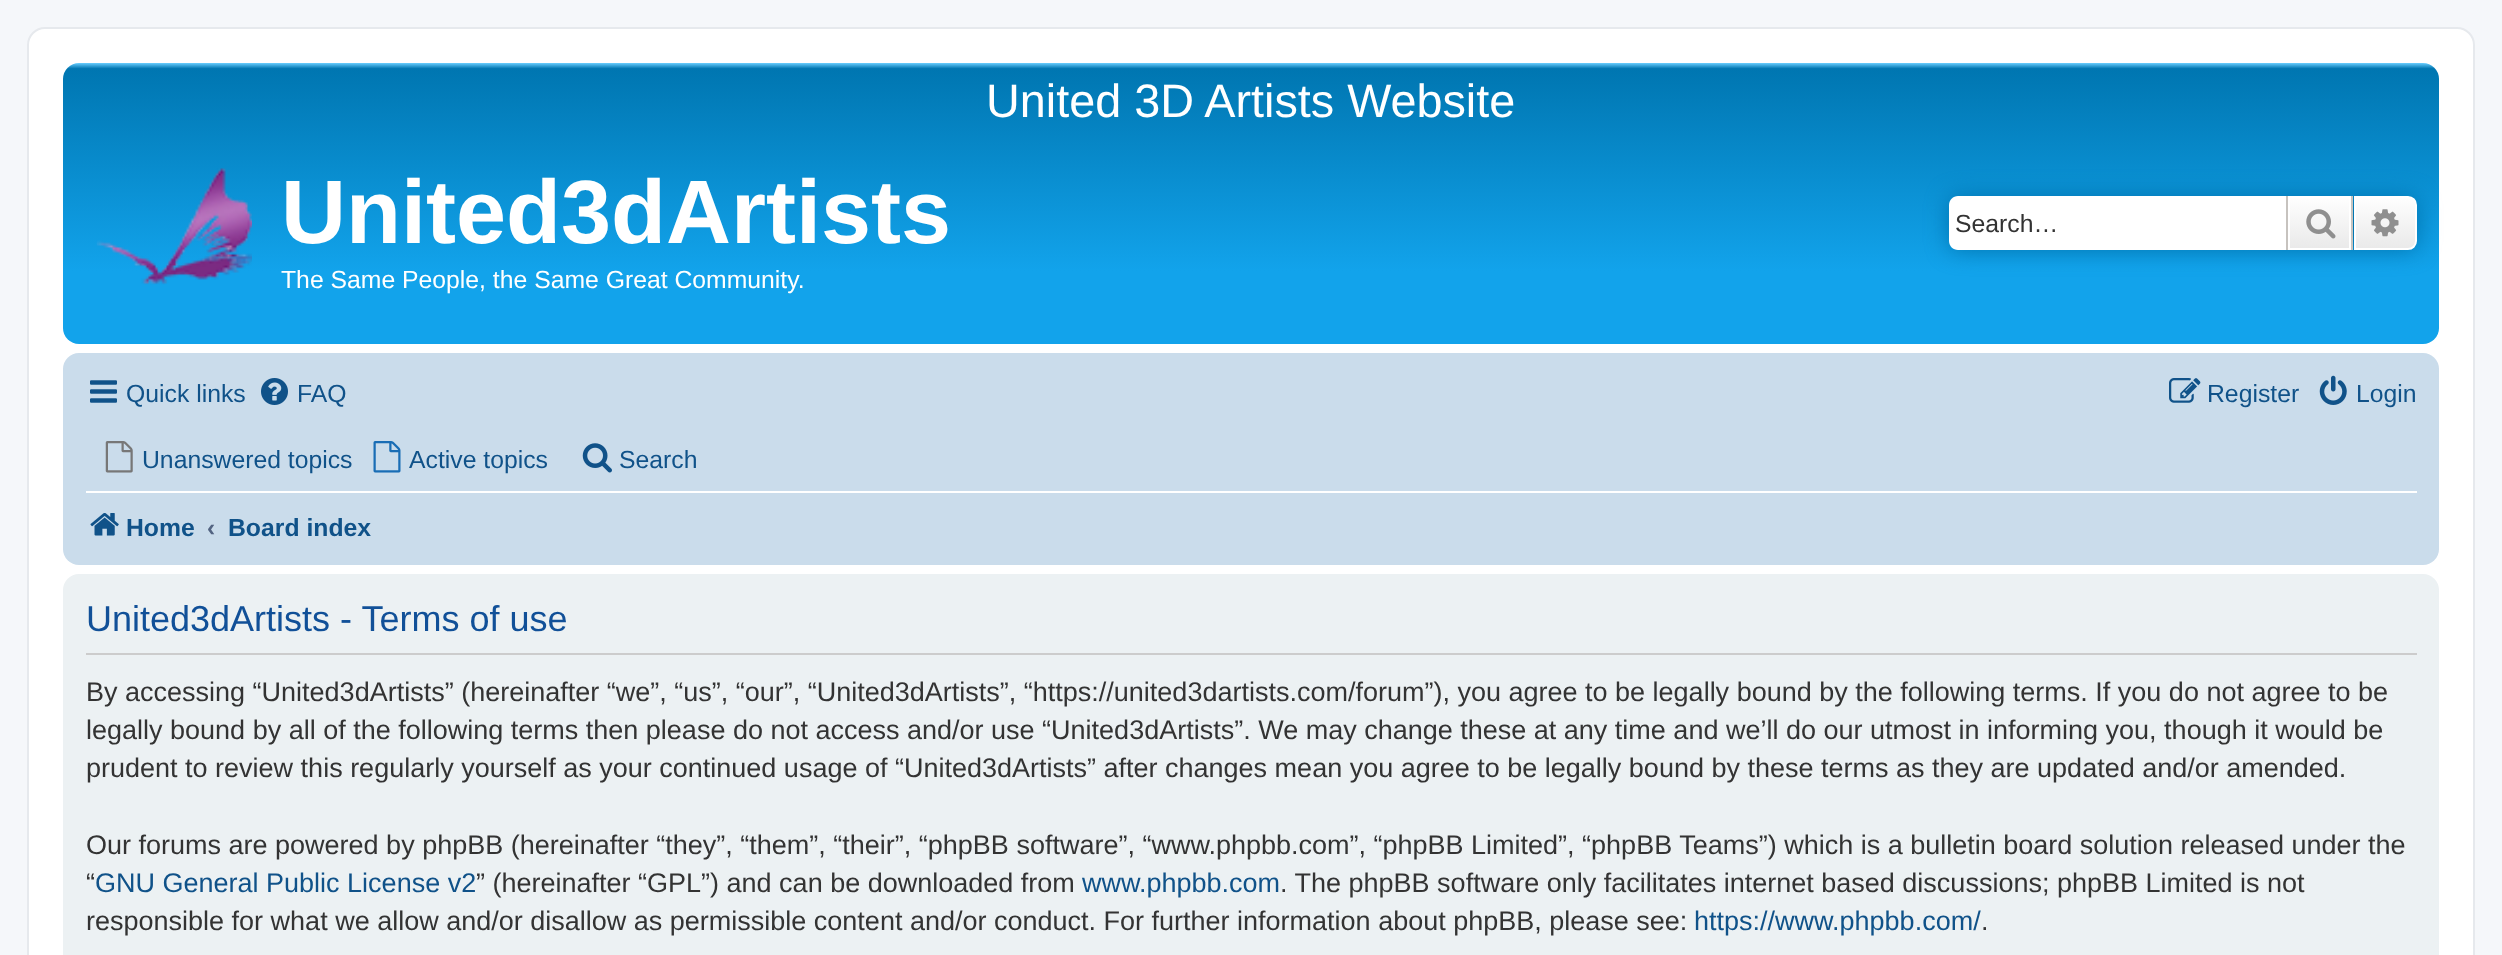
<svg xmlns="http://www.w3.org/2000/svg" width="2502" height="955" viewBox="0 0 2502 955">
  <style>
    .t1 { font: 46.75px Liberation Sans; fill: #fff; }
    .t2 { font: bold 90px Liberation Sans; fill: #fff; }
    .t3 { font: 24.75px Liberation Sans; fill: #fff; }
    .t4 { font: 24.75px Liberation Sans; fill: #333; }
    .t5 { font: 24.75px Liberation Sans; fill: #105289; }
    .t6 { font: bold 24.75px Liberation Sans; fill: #105289; }
    .t7 { font: bold 24.75px Liberation Sans; fill: #536482; }
    .t8 { font: 36px Liberation Sans; fill: #115098; }
    .t9 { font: 27px Liberation Sans; fill: #333; }
    .t10 { font: 27px Liberation Sans; fill: #105289; }
  </style>
  <defs>
    <linearGradient id="g1" gradientUnits="userSpaceOnUse" x1="1251" y1="63" x2="1251" y2="344"><stop offset="0" stop-color="#6aceff"/><stop offset="0.02" stop-color="#0076b1"/><stop offset="0.74" stop-color="#12a3eb"/><stop offset="1" stop-color="#12a3eb"/></linearGradient>
    <linearGradient id="g2" gradientUnits="userSpaceOnUse" x1="2320" y1="196" x2="2320" y2="250"><stop offset="0" stop-color="#fff"/><stop offset="1" stop-color="#e9e9e9"/></linearGradient>
    <linearGradient id="g3" gradientUnits="userSpaceOnUse" x1="2385" y1="196" x2="2385" y2="250"><stop offset="0" stop-color="#fff"/><stop offset="1" stop-color="#e9e9e9"/></linearGradient>
  </defs>
  <rect width="100%" height="100%" fill="#f5f7fa"/>
  <rect x="28" y="28" width="2446" height="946" rx="17" fill="#fff" stroke="#e6e9ed" stroke-width="2"/>
  <rect x="63" y="63" width="2376" height="281" rx="16" fill="url(#g1)"/>
  <text x="986" y="117" class="t1">United 3D Artists Website</text>
  <image x="96" y="168" width="156" height="117" href="images/1.png"/>
  <text x="281" y="243" class="t2">United3dArtists</text>
  <text x="281" y="288" class="t3">The Same People, the Same Great Community.</text>
  <rect x="1949" y="196" width="468" height="54" rx="9" fill="#0075b0" filter="blur(11px)"/>
  <path d="M1958 196H2286V250H1958C1953 250 1949 246 1949 241V205C1949 200 1953 196 1958 196Z" fill="#fff"/>
  <text x="1955" y="232" class="t4">Search…</text>
  <rect x="2290" y="198" width="59" height="50" fill="url(#g2)"/>
  <rect x="2289" y="197" width="61" height="52" fill="none" stroke="#fff" stroke-width="2"/>
  <rect x="2351" y="196" width="2" height="54" fill="#c7c3bf"/>
  <rect x="2286" y="196" width="2" height="54" fill="#c7c3bf"/>
  <image x="2306" y="209" width="30" height="30" href="images/2.png"/>
  <path d="M2355 197H2408C2412.5 197 2416 200.5 2416 205V241C2416 245.5 2412.5 249 2408 249H2355Z" fill="url(#g3)" stroke="#fff" stroke-width="2"/>
  <image x="2371" y="209" width="28" height="28" href="images/3.png"/>
  <rect x="63" y="353" width="2376" height="212" rx="16" fill="#cadceb"/>
  <image x="90" y="380" width="27" height="23" href="images/4.png"/>
  <text x="126" y="402" class="t5">Quick links</text>
  <image x="261" y="378" width="27" height="27" href="images/5.png"/>
  <text x="297" y="402" class="t5">FAQ</text>
  <image x="2169" y="378" width="32" height="25" href="images/6.png"/>
  <text x="2207" y="402" class="t5">Register</text>
  <image x="2319" y="375" width="28" height="30" href="images/7.png"/>
  <text x="2356" y="402" class="t5">Login</text>
  <image x="105" y="441" width="28" height="32" href="images/8.png"/>
  <text x="142" y="468" class="t5">Unanswered topics</text>
  <image x="373" y="441" width="28" height="32" href="images/9.png"/>
  <text x="409" y="468" class="t5">Active topics</text>
  <image x="582" y="443" width="30" height="30" href="images/10.png"/>
  <text x="619" y="468" class="t5">Search</text>
  <rect x="86" y="491" width="2331" height="2" fill="#fff"/>
  <image x="90" y="513" width="29" height="23" href="images/11.png"/>
  <text x="126" y="536" class="t6">Home</text>
  <text x="207" y="536" class="t7">‹</text>
  <text x="228" y="536" class="t6">Board index</text>
  <rect x="63" y="574" width="2376" height="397" rx="16" fill="#ecf1f3"/>
  <rect x="86" y="653" width="2331" height="2" fill="#ccc"/>
  <text x="86" y="631" class="t8">United3dArtists - Terms of use</text>
  <text x="86" y="701" class="t9">By accessing “United3dArtists” (hereinafter “we”, “us”, “our”, “United3dArtists”, “https://united3dartists.com/forum”), you agree to be legally bound by the following terms. If you do not agree to be</text>
  <text x="86" y="739" class="t9">legally bound by all of the following terms then please do not access and/or use “United3dArtists”. We may change these at any time and we’ll do our utmost in informing you, though it would be</text>
  <text x="86" y="777" class="t9">prudent to review this regularly yourself as your continued usage of “United3dArtists” after changes mean you agree to be legally bound by these terms as they are updated and/or amended.</text>
  <text x="86" y="854" class="t9">Our forums are powered by phpBB (hereinafter “they”, “them”, “their”, “phpBB software”, “www.phpbb.com”, “phpBB Limited”, “phpBB Teams”) which is a bulletin board solution released under the</text>
  <text x="86" y="892" class="t9">“</text>
  <text x="95" y="892" class="t10">GNU General Public License v2</text>
  <text x="476" y="892" class="t9">” (hereinafter “GPL”) and can be downloaded from</text>
  <text x="1082" y="892" class="t10">www.phpbb.com</text>
  <text x="1280" y="892" class="t9">. The phpBB software only facilitates internet based discussions; phpBB Limited is not</text>
  <text x="86" y="930" class="t9">responsible for what we allow and/or disallow as permissible content and/or conduct. For further information about phpBB, please see:</text>
  <text x="1694" y="930" class="t10">https://www.phpbb.com/</text>
  <text x="1981" y="930" class="t9">.</text>
</svg>
